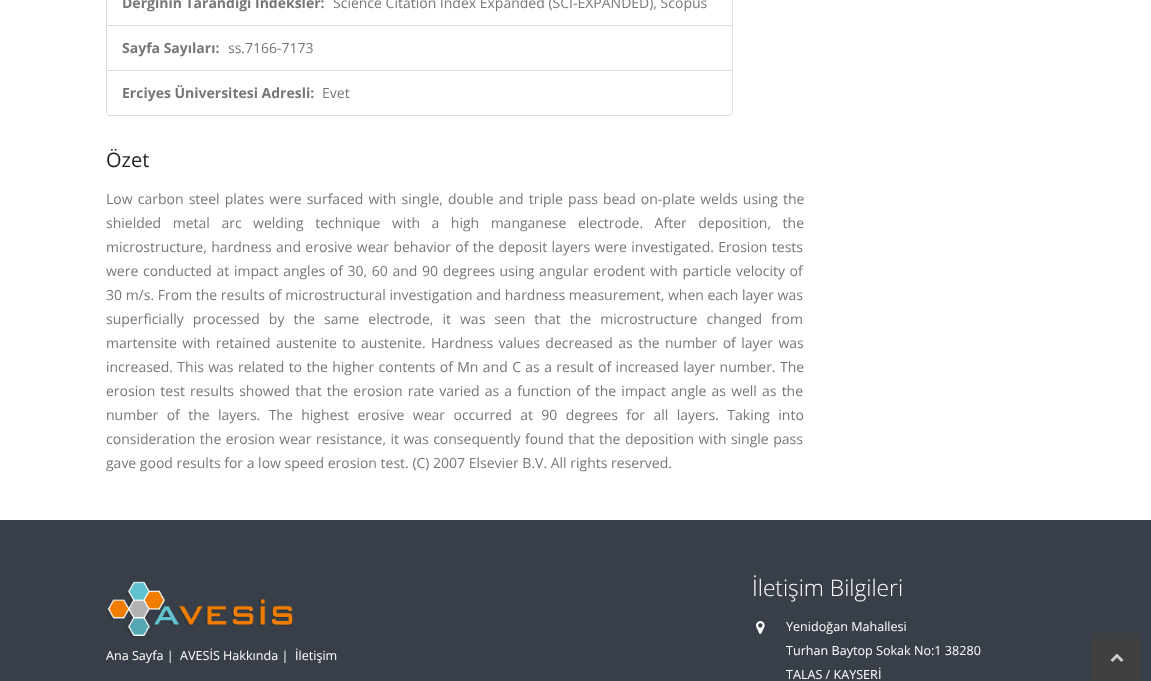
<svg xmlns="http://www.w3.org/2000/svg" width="1151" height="681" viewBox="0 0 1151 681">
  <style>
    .t1 { font: bold 14px Open Sans; fill: #777; }
    .t2 { font: 14px Open Sans; fill: #777; }
    .t3 { font: 20px Open Sans; fill: #1d2127; }
    .t4 { font: 12.6px Open Sans; fill: #fff; }
    .t5 { font: 300 22.75px Open Sans; fill: #fff; }
  </style>
  <rect width="100%" height="100%" fill="#fff"/>
  <rect x="106.5" y="-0.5" width="626" height="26" fill="none" stroke="#ddd"/>
  <text x="122" y="8" class="t1">Derginin Tarandığı İndeksler:</text>
  <text x="333" y="8" class="t2">Science Citation Index Expanded (SCI-EXPANDED), Scopus</text>
  <rect x="106.5" y="25.5" width="626" height="45" fill="none" stroke="#ddd"/>
  <text x="122" y="53" class="t1">Sayfa Sayıları:</text>
  <text x="228" y="53" class="t2">ss.7166-7173</text>
  <path d="M106.5 70.5H732.5V112C732.5 114 731 115.5 729 115.5H110C108 115.5 106.5 114 106.5 112Z" fill="#fff" stroke="#ddd"/>
  <text x="122" y="98" class="t1">Erciyes Üniversitesi Adresli:</text>
  <text x="322" y="98" class="t2">Evet</text>
  <text x="106" y="167" class="t3">Özet</text>
  <text x="106" y="204" word-spacing="1.5" class="t2">Low carbon steel plates were surfaced with single, double and triple pass bead on-plate welds using the</text>
  <text x="106" y="228" word-spacing="7.9" class="t2">shielded metal arc welding technique with a high manganese electrode. After deposition, the</text>
  <text x="106" y="252" word-spacing="0.75" class="t2">microstructure, hardness and erosive wear behavior of the deposit layers were investigated. Erosion tests</text>
  <text x="106" y="276" word-spacing="1" class="t2">were conducted at impact angles of 30, 60 and 90 degrees using angular erodent with particle velocity of</text>
  <text x="106" y="300" class="t2">30 m/s. From the results of microstructural investigation and hardness measurement, when each layer was</text>
  <text x="106" y="324" word-spacing="5.4" class="t2">superficially processed by the same electrode, it was seen that the microstructure changed from</text>
  <text x="106" y="348" word-spacing="1.75" class="t2">martensite with retained austenite to austenite. Hardness values decreased as the number of layer was</text>
  <text x="106" y="372" word-spacing="0.75" class="t2">increased. This was related to the higher contents of Mn and C as a result of increased layer number. The</text>
  <text x="106" y="396" word-spacing="1.5" class="t2">erosion test results showed that the erosion rate varied as a function of the impact angle as well as the</text>
  <text x="106" y="420" word-spacing="4.75" class="t2">number of the layers. The highest erosive wear occurred at 90 degrees for all layers. Taking into</text>
  <text x="106" y="444" word-spacing="0.8" class="t2">consideration the erosion wear resistance, it was consequently found that the deposition with single pass</text>
  <text x="106" y="468" class="t2">gave good results for a low speed erosion test. (C) 2007 Elsevier B.V. All rights reserved.</text>
  <rect x="0" y="520" width="1151" height="161" fill="#383f48"/>
  <image x="106" y="581" width="187" height="56" href="images/1.png"/>
  <text x="106" y="660" class="t4">Ana Sayfa |</text>
  <text x="180" y="660" class="t4">AVESİS Hakkında |</text>
  <text x="295" y="660" class="t4">İletişim</text>
  <text x="752" y="596" class="t5">İletişim Bilgileri</text>
  <image x="756" y="621" width="9" height="13" href="images/2.png"/>
  <text x="786" y="631" class="t4">Yenidoğan Mahallesi</text>
  <text x="786" y="655" class="t4">Turhan Baytop Sokak No:1 38280</text>
  <text x="786" y="679" class="t4">TALAS / KAYSERİ</text>
  <path d="M1099 633H1134C1138 633 1141 636 1141 640V681H1092V640C1092 636 1095 633 1099 633Z" fill="#3e4042"/>
  <image x="1110" y="653" width="14" height="9" href="images/3.png"/>
</svg>
